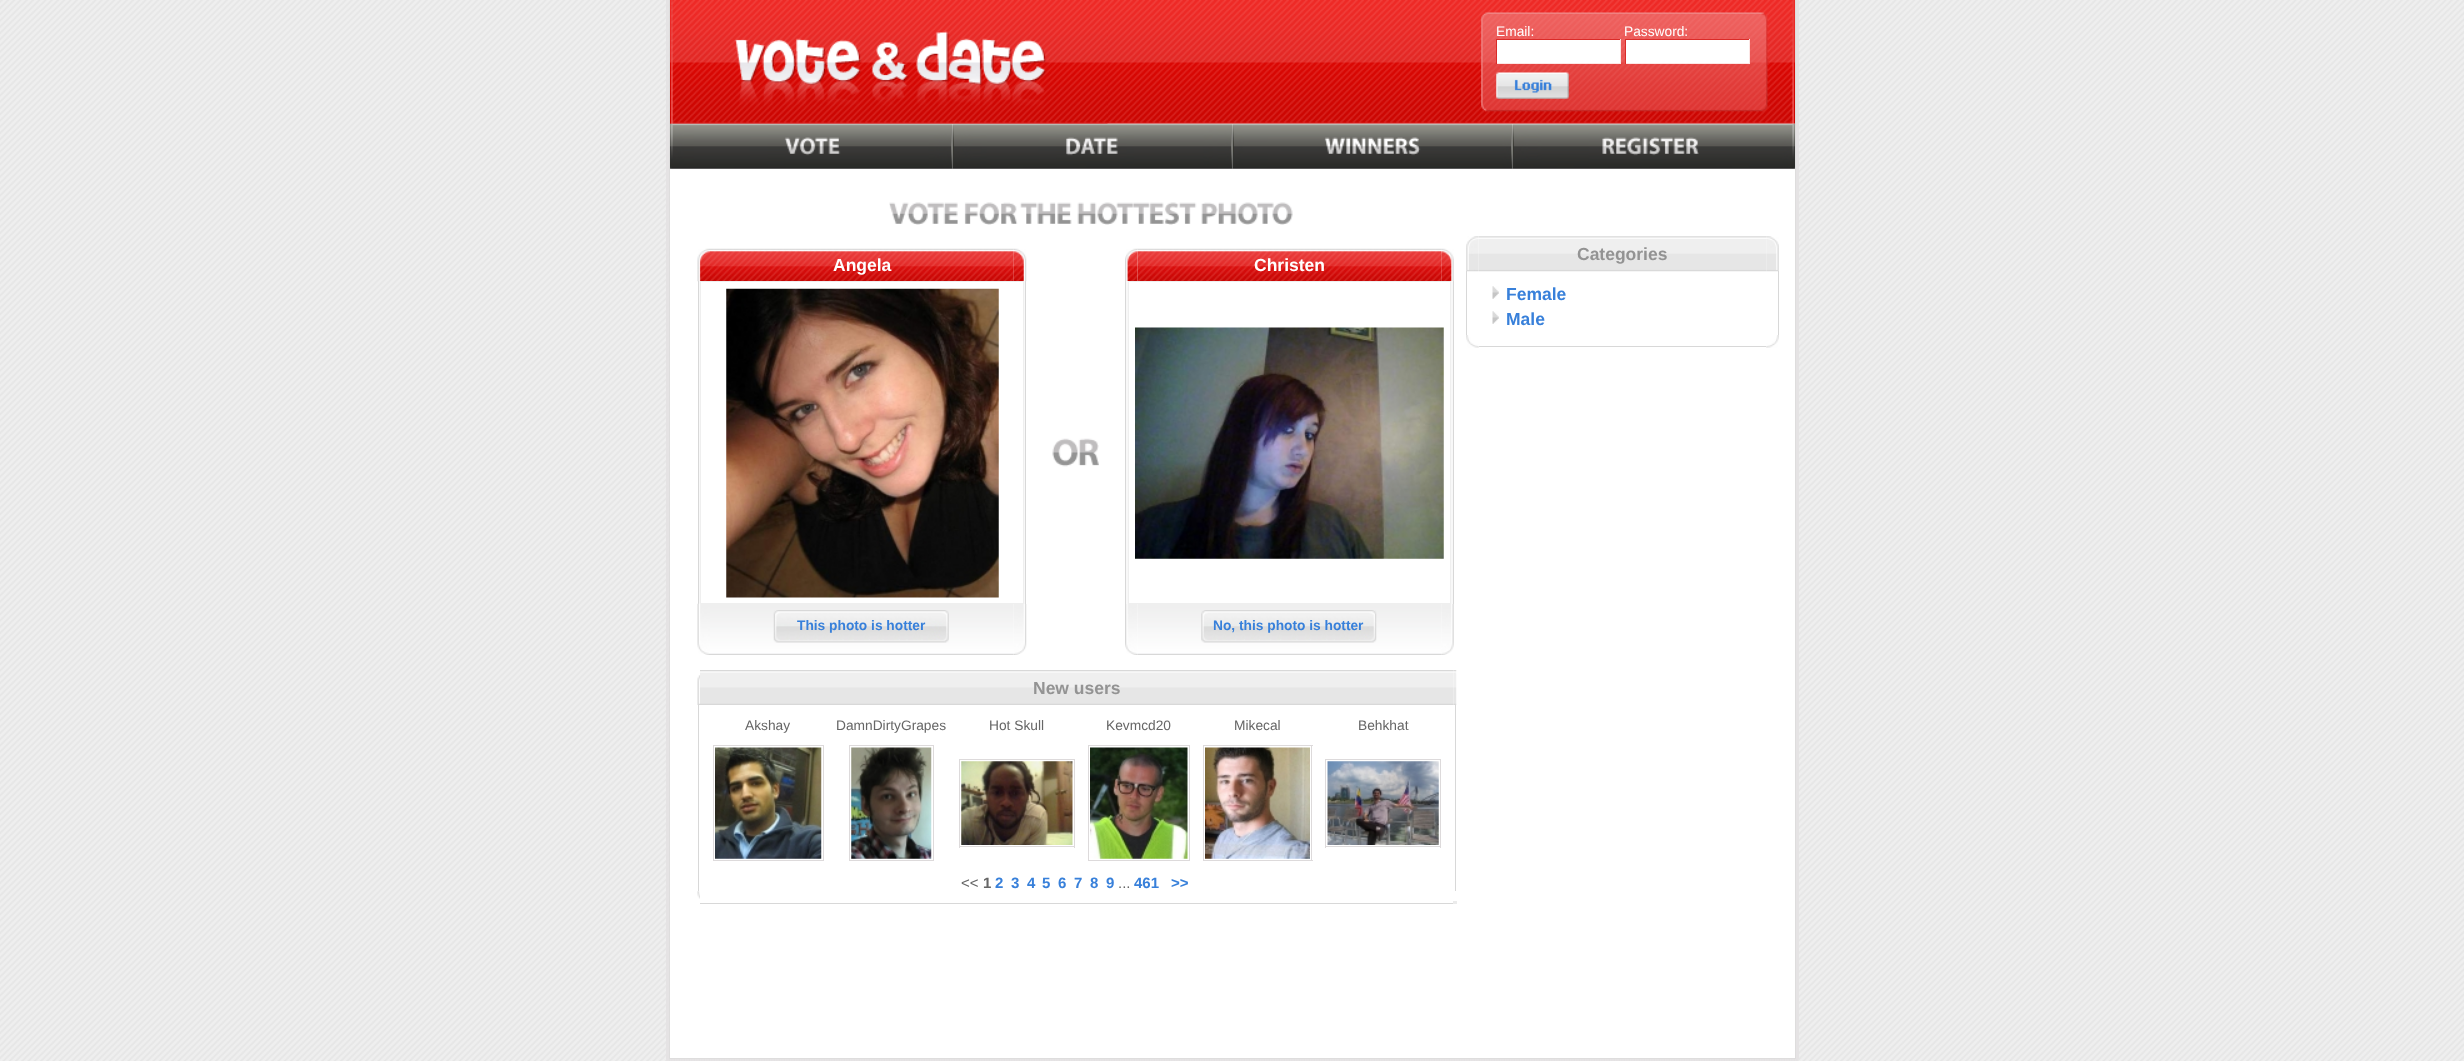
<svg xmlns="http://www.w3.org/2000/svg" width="2464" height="1061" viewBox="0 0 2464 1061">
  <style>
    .t1 { font: 13.75px Liberation Sans; fill: #fff; }
    .t2 { font: bold 17.5px Liberation Sans; fill: #fff; }
    .t3 { font: bold 13.75px Liberation Sans; fill: #3880da; }
    .t4 { font: bold 17.5px Liberation Sans; fill: #939393; }
    .t5 { font: 13.75px Liberation Sans; fill: #666; }
    .t6 { font: 15px Liberation Sans; fill: #666; }
    .t7 { font: bold 15px Liberation Sans; fill: #666; }
    .t8 { font: bold 15px Liberation Sans; fill: #3880da; }
    .t9 { font: bold 17.5px Liberation Sans; fill: #3880da; }
  </style>
  <rect width="100%" height="100%" fill="#fff"/>
  <image x="0" y="0" width="2464" height="1061" href="images/1.png"/>
  <rect x="666" y="0" width="3" height="1059" fill="#e5e3e4"/>
  <rect x="670" y="123" width="1125" height="935" fill="#fff"/>
  <rect x="1795" y="0" width="1" height="1059" fill="#dedddd"/>
  <rect x="669" y="1058" width="1127" height="1" fill="#dedddd"/>
  <rect x="669" y="0" width="1" height="1059" fill="#dedddd"/>
  <image x="670" y="0" width="1125" height="124" href="images/2.png"/>
  <image x="670" y="0" width="438" height="124" href="images/3.png"/>
  <text x="1496" y="36" class="t1">Email:</text>
  <text x="1624" y="36" class="t1">Password:</text>
  <rect x="1497" y="40" width="123" height="23" fill="#fff"/>
  <rect x="1496" y="39" width="125" height="1" fill="#da2b28"/>
  <rect x="1620" y="39" width="1" height="25" fill="#fce6e5"/>
  <rect x="1496" y="63" width="125" height="1" fill="#fce6e5"/>
  <rect x="1496" y="39" width="1" height="25" fill="#da2b28"/>
  <rect x="1626" y="40" width="123" height="23" fill="#fff"/>
  <rect x="1625" y="39" width="125" height="1" fill="#da2b28"/>
  <rect x="1749" y="39" width="1" height="25" fill="#fce6e5"/>
  <rect x="1625" y="63" width="125" height="1" fill="#fce6e5"/>
  <rect x="1625" y="39" width="1" height="25" fill="#da2b28"/>
  <image x="1496" y="72" width="73" height="27" href="images/4.png"/>
  <image x="670" y="123" width="283" height="46" href="images/5.png"/>
  <image x="952" y="123" width="281" height="46" href="images/6.png"/>
  <image x="1232" y="123" width="281" height="46" href="images/7.png"/>
  <image x="1512" y="123" width="283" height="46" href="images/8.png"/>
  <image x="889" y="202" width="404" height="23" href="images/9.png"/>
  <image x="697" y="248" width="13" height="34" href="images/10.png"/>
  <image x="710" y="248" width="304" height="33" href="images/11.png"/>
  <text x="833" y="271" class="t2">Angela</text>
  <image x="1013" y="248" width="14" height="34" href="images/12.png"/>
  <rect x="699" y="281" width="326" height="323" fill="#f8f8f8"/>
  <rect x="1025" y="281" width="1" height="323" fill="#d8d8d8"/>
  <rect x="698" y="281" width="1" height="323" fill="#d8d8d8"/>
  <rect x="700.5" y="281.5" width="323" height="322" fill="#fff" stroke="#efefef"/>
  <image x="726" y="288" width="273" height="310" href="images/13.png"/>
  <image x="697" y="603" width="13" height="52" href="images/14.png"/>
  <image x="710" y="604" width="304" height="51" href="images/15.png"/>
  <image x="773" y="610" width="176" height="33" href="images/16.png"/>
  <text x="797" y="630" class="t3">This photo is hotter</text>
  <image x="1014" y="604" width="13" height="51" href="images/17.png"/>
  <image x="1052" y="438" width="47" height="29" href="images/18.png"/>
  <image x="1125" y="248" width="13" height="33" href="images/19.png"/>
  <image x="1137" y="248" width="305" height="33" href="images/20.png"/>
  <text x="1254" y="271" class="t2">Christen</text>
  <image x="1441" y="248" width="13" height="33" href="images/21.png"/>
  <rect x="1126" y="281" width="327" height="323" fill="#f8f8f8"/>
  <rect x="1453" y="281" width="1" height="323" fill="#d8d8d8"/>
  <rect x="1125" y="281" width="1" height="323" fill="#d8d8d8"/>
  <rect x="1128.5" y="281.5" width="322" height="322" fill="#fff" stroke="#efefef"/>
  <image x="1135" y="327" width="309" height="232" href="images/22.png"/>
  <image x="1125" y="604" width="13" height="51" href="images/23.png"/>
  <image x="1137" y="604" width="305" height="51" href="images/24.png"/>
  <image x="1201" y="610" width="176" height="33" href="images/25.png"/>
  <text x="1213" y="630" class="t3">No, this photo is hotter</text>
  <image x="1441" y="604" width="13" height="51" href="images/26.png"/>
  <image x="697" y="675" width="3" height="30" href="images/27.png"/>
  <image x="700" y="670" width="754" height="35" href="images/28.png"/>
  <text x="1033" y="694" class="t4">New users</text>
  <image x="1454" y="670" width="3" height="35" href="images/29.png"/>
  <rect x="698" y="705" width="1" height="186" fill="#d8d8d8"/>
  <text x="745" y="730" class="t5">Akshay</text>
  <text x="836" y="730" class="t5">DamnDirtyGrapes</text>
  <text x="989" y="730" class="t5">Hot Skull</text>
  <text x="1106" y="730" class="t5">Kevmcd20</text>
  <text x="1234" y="730" class="t5">Mikecal</text>
  <text x="1358" y="730" class="t5">Behkhat</text>
  <rect x="713" y="745" width="111" height="1" fill="#dddadb"/>
  <rect x="823" y="745" width="1" height="116" fill="#dddadb"/>
  <rect x="713" y="860" width="111" height="1" fill="#dddadb"/>
  <rect x="713" y="745" width="1" height="116" fill="#dddadb"/>
  <image x="715" y="747" width="107" height="112" href="images/30.png"/>
  <rect x="849" y="745" width="85" height="1" fill="#dddadb"/>
  <rect x="933" y="745" width="1" height="116" fill="#dddadb"/>
  <rect x="849" y="860" width="85" height="1" fill="#dddadb"/>
  <rect x="849" y="745" width="1" height="116" fill="#dddadb"/>
  <image x="851" y="747" width="81" height="112" href="images/31.png"/>
  <rect x="959" y="759" width="116" height="1" fill="#dddadb"/>
  <rect x="1074" y="759" width="1" height="89" fill="#dddadb"/>
  <rect x="959" y="846" width="116" height="1" fill="#dddadb"/>
  <rect x="959" y="759" width="1" height="89" fill="#dddadb"/>
  <image x="961" y="761" width="112" height="84" href="images/32.png"/>
  <rect x="1088" y="745" width="102" height="1" fill="#dddadb"/>
  <rect x="1189" y="745" width="1" height="116" fill="#dddadb"/>
  <rect x="1088" y="860" width="102" height="1" fill="#dddadb"/>
  <rect x="1088" y="745" width="1" height="116" fill="#dddadb"/>
  <image x="1090" y="747" width="98" height="112" href="images/33.png"/>
  <rect x="1203" y="745" width="110" height="1" fill="#dddadb"/>
  <rect x="1311" y="745" width="1" height="116" fill="#dddadb"/>
  <rect x="1203" y="860" width="110" height="1" fill="#dddadb"/>
  <rect x="1203" y="745" width="1" height="116" fill="#dddadb"/>
  <image x="1205" y="747" width="105" height="112" href="images/34.png"/>
  <rect x="1325" y="759" width="116" height="1" fill="#dddadb"/>
  <rect x="1440" y="759" width="1" height="89" fill="#dddadb"/>
  <rect x="1325" y="846" width="116" height="1" fill="#dddadb"/>
  <rect x="1325" y="759" width="1" height="89" fill="#dddadb"/>
  <image x="1327" y="761" width="112" height="84" href="images/35.png"/>
  <text x="961" y="888" class="t6">&lt;&lt;</text>
  <text x="983" y="888" class="t7">1</text>
  <text x="995" y="888" class="t8">2</text>
  <text x="1011" y="888" class="t8">3</text>
  <text x="1027" y="888" class="t8">4</text>
  <text x="1042" y="888" class="t8">5</text>
  <text x="1058" y="888" class="t8">6</text>
  <text x="1074" y="888" class="t8">7</text>
  <text x="1090" y="888" class="t8">8</text>
  <text x="1106" y="888" class="t8">9</text>
  <text x="1118" y="888" class="t6">...</text>
  <text x="1134" y="888" class="t8">461</text>
  <text x="1171" y="888" class="t8">&gt;&gt;</text>
  <rect x="1455" y="705" width="1" height="186" fill="#d8d8d8"/>
  <image x="697" y="891" width="3" height="8" href="images/36.png"/>
  <rect x="700" y="903" width="754" height="1" fill="#d8d8d8"/>
  <rect x="1453" y="901" width="4" height="3" fill="#ebebeb"/>
  <image x="1466" y="236" width="13" height="36" href="images/37.png"/>
  <image x="1479" y="236" width="288" height="36" href="images/38.png"/>
  <text x="1577" y="260" class="t4">Categories</text>
  <image x="1766" y="236" width="13" height="36" href="images/39.png"/>
  <rect x="1778" y="271" width="1" height="64" fill="#d8d8d8"/>
  <rect x="1466" y="271" width="1" height="64" fill="#d8d8d8"/>
  <image x="1492" y="286" width="7" height="13" href="images/40.png"/>
  <text x="1506" y="300" class="t9">Female</text>
  <image x="1492" y="311" width="7" height="13" href="images/41.png"/>
  <text x="1506" y="325" class="t9">Male</text>
  <image x="1466" y="335" width="13" height="13" href="images/42.png"/>
  <rect x="1479" y="346" width="287" height="1" fill="#d8d8d8"/>
  <image x="1766" y="335" width="13" height="13" href="images/43.png"/>
  <rect x="1796" y="0" width="3" height="1059" fill="#e5e3e4"/>
  <image x="666" y="1059" width="1132" height="2" href="images/44.png"/>
</svg>
